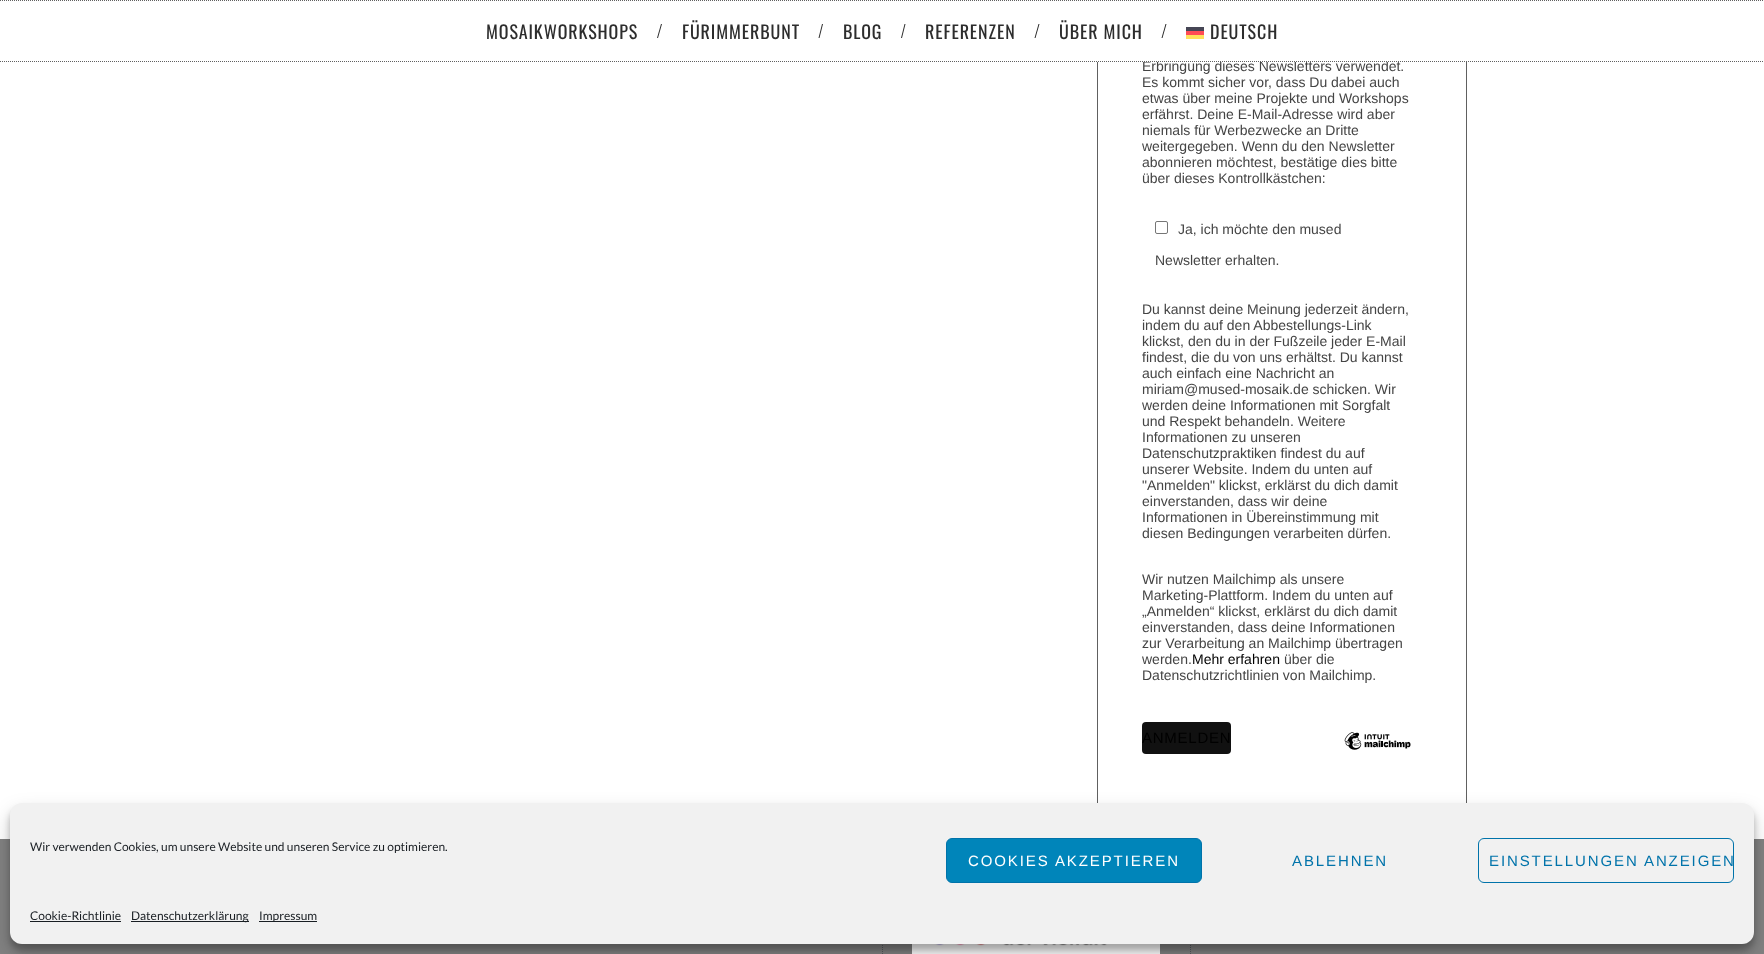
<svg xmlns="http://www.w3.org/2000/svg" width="1764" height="954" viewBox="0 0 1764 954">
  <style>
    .t1 { font: 14px Liberation Sans; fill: #444; }
    .t2 { font: 18px Oswald; letter-spacing: 0.9px; fill: #2d2d2d; }
    .t3 { font: 14px Liberation Sans; fill: #000; }
    .t4 { font: 15px Liberation Sans; letter-spacing: 0.75px; fill: #000; }
    .t5 { font: 12px Lato; fill: #191e23; }
    .t6 { font: 15px Liberation Sans; letter-spacing: 1.9px; fill: #fff; }
    .t7 { font: 15px Liberation Sans; letter-spacing: 1.9px; fill: #0073aa; }
  </style>
  <rect width="100%" height="100%" fill="#fff"/>
  <rect x="1097.5" y="-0.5" width="369" height="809" fill="none" stroke="#606060"/>
  <text x="1142" y="71" class="t1">Erbringung dieses Newsletters verwendet.</text>
  <rect x="1097" y="0" width="370" height="62" fill="#fff"/>
  <path d="M0 .5H1764" fill="none" stroke="#606060" stroke-dasharray="1 1"/>
  <path d="M0 61.5H1764" fill="none" stroke="#606060" stroke-dasharray="1 1"/>
  <text x="486" y="39" class="t2">MOSAIKWORKSHOPS</text>
  <path d="M661 24H662L658 38H657Z" fill="#2d2d2d"/>
  <text x="682" y="39" class="t2">FÜRIMMERBUNT</text>
  <path d="M822 24H823L819.5 38H818.5Z" fill="#2d2d2d"/>
  <text x="843" y="39" class="t2">BLOG</text>
  <path d="M904.5 24H905.5L902 38H901Z" fill="#2d2d2d"/>
  <text x="925" y="39" class="t2">REFERENZEN</text>
  <path d="M1038.5 24H1039.5L1035.5 38H1034.5Z" fill="#2d2d2d"/>
  <text x="1059" y="39" class="t2">ÜBER MICH</text>
  <path d="M1165.5 24H1166.5L1162.5 38H1161.5Z" fill="#2d2d2d"/>
  <rect x="1186" y="27" width="18" height="4" fill="#464655"/>
  <text x="1210" y="39" class="t2">DEUTSCH</text>
  <rect x="1186" y="31" width="18" height="4" fill="#ff4b55"/>
  <rect x="1186" y="35" width="18" height="4" fill="#ffe15a"/>
  <text x="1142" y="87" class="t1">Es kommt sicher vor, dass Du dabei auch</text>
  <text x="1142" y="103" class="t1">etwas über meine Projekte und Workshops</text>
  <text x="1142" y="119" class="t1">erfährst. Deine E-Mail-Adresse wird aber</text>
  <text x="1142" y="135" class="t1">niemals für Werbezwecke an Dritte</text>
  <text x="1142" y="151" class="t1">weitergegeben. Wenn du den Newsletter</text>
  <text x="1142" y="167" class="t1">abonnieren möchtest, bestätige dies bitte</text>
  <text x="1142" y="183" class="t1">über dieses Kontrollkästchen:</text>
  <rect x="1155.5" y="221.5" width="12" height="12" rx="1.5" fill="none" stroke="#767676"/>
  <text x="1178" y="234" class="t1">Ja, ich möchte den mused</text>
  <text x="1155" y="265" class="t1">Newsletter erhalten.</text>
  <text x="1142" y="314" class="t1">Du kannst deine Meinung jederzeit ändern,</text>
  <text x="1142" y="330" class="t1">indem du auf den Abbestellungs-Link</text>
  <text x="1142" y="346" class="t1">klickst, den du in der Fußzeile jeder E-Mail</text>
  <text x="1142" y="362" class="t1">findest, die du von uns erhältst. Du kannst</text>
  <text x="1142" y="378" class="t1">auch einfach eine Nachricht an</text>
  <text x="1142" y="394" class="t1">miriam@mused-mosaik.de schicken. Wir</text>
  <text x="1142" y="410" class="t1">werden deine Informationen mit Sorgfalt</text>
  <text x="1142" y="426" class="t1">und Respekt behandeln. Weitere</text>
  <text x="1142" y="442" class="t1">Informationen zu unseren</text>
  <text x="1142" y="458" class="t1">Datenschutzpraktiken findest du auf</text>
  <text x="1142" y="474" class="t1">unserer Website. Indem du unten auf</text>
  <text x="1142" y="490" class="t1">"Anmelden" klickst, erklärst du dich damit</text>
  <text x="1142" y="506" class="t1">einverstanden, dass wir deine</text>
  <text x="1142" y="522" class="t1">Informationen in Übereinstimmung mit</text>
  <text x="1142" y="538" class="t1">diesen Bedingungen verarbeiten dürfen.</text>
  <text x="1142" y="584" class="t1">Wir nutzen Mailchimp als unsere</text>
  <text x="1142" y="600" class="t1">Marketing-Plattform. Indem du unten auf</text>
  <text x="1142" y="616" class="t1">„Anmelden“ klickst, erklärst du dich damit</text>
  <text x="1142" y="632" class="t1">einverstanden, dass deine Informationen</text>
  <text x="1142" y="648" class="t1">zur Verarbeitung an Mailchimp übertragen</text>
  <text x="1142" y="664" class="t1">werden.</text>
  <text x="1192" y="664" class="t3">Mehr erfahren</text>
  <text x="1284" y="664" class="t1">über die</text>
  <text x="1142" y="680" class="t1">Datenschutzrichtlinien von Mailchimp.</text>
  <rect x="1142" y="722" width="89" height="32" rx="4" fill="#111"/>
  <text x="1142" y="743" class="t4">ANMELDEN</text>
  <image x="1344" y="732" width="67" height="18" href="images/1.png"/>
  <rect x="0" y="839" width="1764" height="115" fill="#828282"/>
  <path d="M882.5 839V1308" fill="none" stroke="#585b61" stroke-dasharray="1 1"/>
  <image x="912" y="944" width="248" height="10" href="images/2.png"/>
  <path d="M1190.5 839V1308" fill="none" stroke="#585b61" stroke-dasharray="1 1"/>
  <rect x="10" y="809" width="1744" height="141" rx="12" fill="#0000003b" filter="blur(3px)"/>
  <rect x="10" y="813" width="1744" height="141" rx="12" fill="#00000030" filter="blur(10px)"/>
  <rect x="10" y="803" width="1744" height="141" rx="12" fill="#f1f1f1"/>
  <text x="30" y="851" class="t5">Wir verwenden Cookies, um unsere Website und unseren Service zu optimieren.</text>
  <rect x="946.5" y="838.5" width="255" height="44" rx="5.5" fill="#0085ba" stroke="#0073aa"/>
  <text x="968" y="866" class="t6">COOKIES AKZEPTIEREN</text>
  <text x="1292" y="866" class="t7">ABLEHNEN</text>
  <rect x="1478.5" y="838.5" width="255" height="44" rx="5.5" fill="none" stroke="#0073aa"/>
  <text x="1489" y="866" class="t7">EINSTELLUNGEN ANZEIGEN</text>
  <text x="30" y="920" class="t5">Cookie-Richtlinie</text>
  <rect x="30" y="921" width="91" height="1" fill="#191e23"/>
  <rect x="131" y="921" width="118" height="1" fill="#191e23"/>
  <text x="131" y="920" class="t5">Datenschutzerklärung</text>
  <rect x="259" y="921" width="58" height="1" fill="#191e23"/>
  <text x="259" y="920" class="t5">Impressum</text>
</svg>
